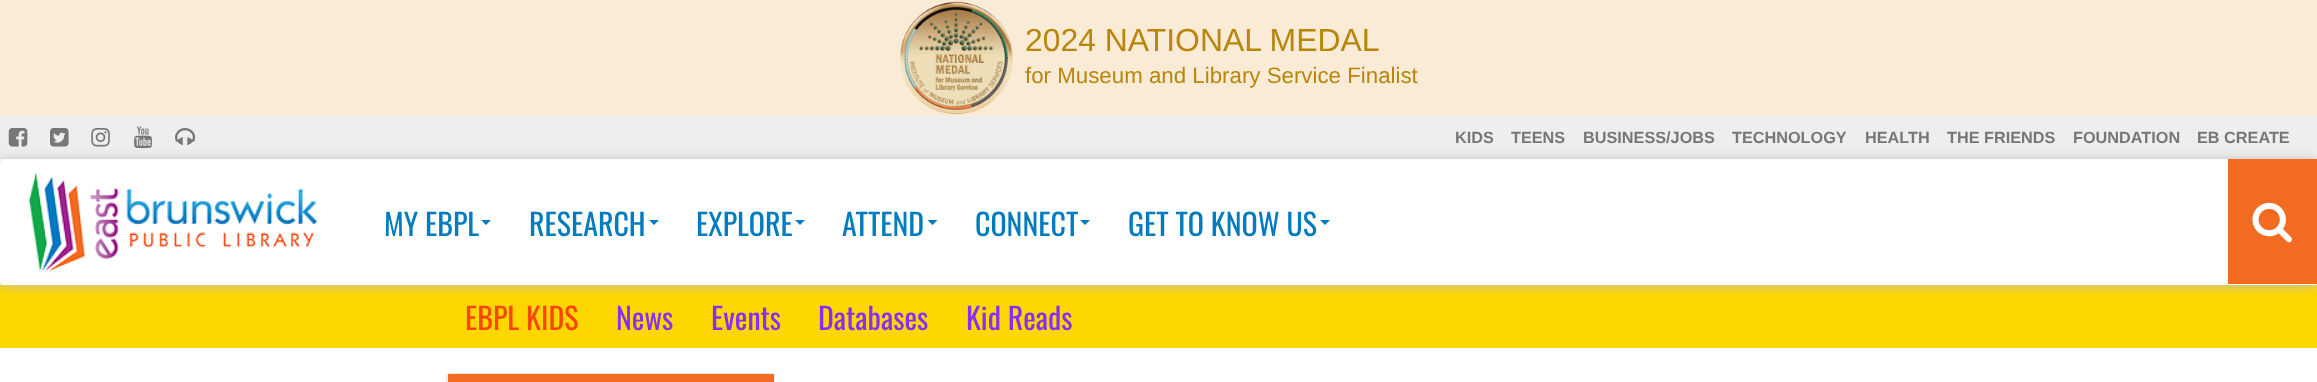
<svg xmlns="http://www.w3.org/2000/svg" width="2317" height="382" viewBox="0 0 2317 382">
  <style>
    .t1 { font: 31.9px Liberation Sans; fill: #b8860b; }
    .t2 { font: 22.3px Liberation Sans; fill: #b8860b; }
    .t3 { font: bold 16.25px Liberation Sans; fill: #777; }
    .t4 { font: 30px Oswald; fill: #027cbf; }
    .t5 { font: 30px Oswald; fill: #f40; }
    .t6 { font: 30px Oswald; fill: #882ff6; }
  </style>
  <defs>
    <clipPath id="clip1"><path d="M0 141H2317V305H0ZM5 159H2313C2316 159 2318 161 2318 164V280C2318 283 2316 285 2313 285H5C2 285 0 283 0 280V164C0 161 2 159 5 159Z" clip-rule="evenodd"/></clipPath>
  </defs>
  <rect width="100%" height="100%" fill="#fff"/>
  <rect x="0" y="116" width="2317" height="43" fill="#eee"/>
  <rect x="0" y="0" width="2317" height="116" fill="#faebd7"/>
  <image x="900" y="1" width="113" height="114" href="images/1.png"/>
  <text x="1025" y="51" class="t1">2024 NATIONAL MEDAL</text>
  <text x="1025" y="83" class="t2">for Museum and Library Service Finalist</text>
  <image x="8" y="128" width="20" height="19" href="images/2.png"/>
  <image x="50" y="128" width="19" height="19" href="images/3.png"/>
  <image x="91" y="128" width="19" height="19" href="images/4.png"/>
  <image x="134" y="126" width="18" height="23" href="images/5.png"/>
  <image x="175" y="128" width="21" height="17" href="images/6.png"/>
  <text x="1455" y="143" class="t3">KIDS</text>
  <text x="1511" y="143" class="t3">TEENS</text>
  <text x="1583" y="143" class="t3">BUSINESS/JOBS</text>
  <text x="1732" y="143" class="t3">TECHNOLOGY</text>
  <text x="1865" y="143" class="t3">HEALTH</text>
  <text x="1947" y="143" class="t3">THE FRIENDS</text>
  <text x="2073" y="143" class="t3">FOUNDATION</text>
  <text x="2197" y="143" class="t3">EB CREATE</text>
  <rect x="0" y="285" width="2317" height="63" fill="#ffd700"/>
  <g clip-path="url(#clip1)">
    <rect x="0" y="160" width="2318" height="126" rx="5" fill="#bbb" filter="blur(6px)"/>
  </g>
  <image x="28" y="172" width="290" height="101" href="images/7.png"/>
  <text x="384" y="236" class="t4">MY EBPL</text>
  <path d="M481 220H491L486 225Z" fill="#027cbf"/>
  <text x="529" y="236" class="t4">RESEARCH</text>
  <path d="M649 220H659L654 225Z" fill="#027cbf"/>
  <text x="696" y="236" class="t4">EXPLORE</text>
  <path d="M795 220H805L800 225Z" fill="#027cbf"/>
  <text x="842" y="236" class="t4">ATTEND</text>
  <path d="M927.5 220H937.5L932.5 225Z" fill="#027cbf"/>
  <text x="975" y="236" class="t4">CONNECT</text>
  <path d="M1080 220H1090L1085 225Z" fill="#027cbf"/>
  <text x="1128" y="236" class="t4">GET TO KNOW US</text>
  <path d="M1320 220H1330L1325 225Z" fill="#027cbf"/>
  <rect x="2228" y="159" width="89" height="125" fill="#f36b21"/>
  <image x="2252" y="202" width="40" height="41" href="images/8.png"/>
  <text x="465" y="330" class="t5">EBPL KIDS</text>
  <text x="616" y="330" class="t6">News</text>
  <text x="711" y="330" class="t6">Events</text>
  <text x="818" y="330" class="t6">Databases</text>
  <text x="966" y="330" class="t6">Kid Reads</text>
  <rect x="446.5" y="373.5" width="328" height="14" rx="4.5" fill="#f5f5f5" stroke="#e3e3e3"/>
  <rect x="448" y="374" width="326" height="8" fill="#f36b21"/>
</svg>
